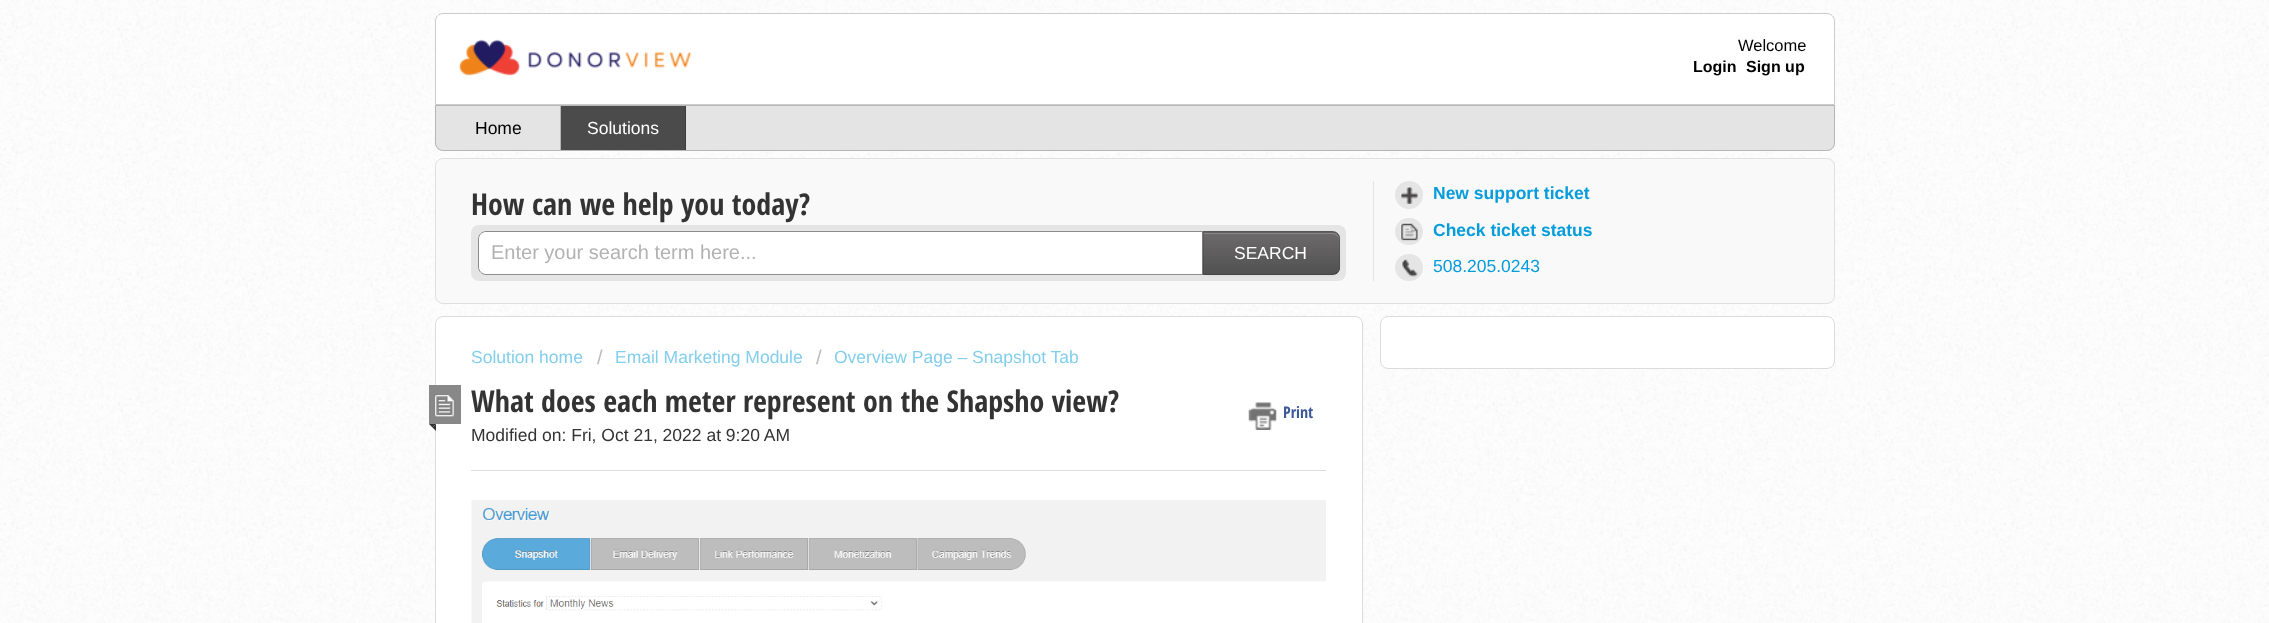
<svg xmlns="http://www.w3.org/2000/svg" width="2269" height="623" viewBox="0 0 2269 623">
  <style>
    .t1 { font: 16.5px Liberation Sans; fill: #000; }
    .t2 { font: bold 16px Liberation Sans; fill: #000; }
    .t3 { font: 17.5px Liberation Sans; fill: #000; }
    .t4 { font: 17.5px Liberation Sans; fill: #fff; }
    .t5 { font: bold 30px Open Sans Condensed; fill: #333; }
    .t6 { font: 20px Liberation Sans; fill: #b2b2b2; }
    .t7 { font: bold 17.5px Liberation Sans; fill: #049cdb; }
    .t8 { font: 17.5px Liberation Sans; fill: #049cdb; }
    .t9 { font: 17.5px Liberation Sans; fill: #82ceed; }
    .t10 { font: 20px Liberation Sans; fill: #bbb; }
    .t11 { font: bold 16px Open Sans Condensed; fill: #3b5998; }
    .t12 { font: 17.5px Liberation Sans; fill: #333; }
  </style>
  <defs>
    <clipPath id="clip1"><path d="M1203 231H1332C1336.5 231 1340 234.5 1340 239V267C1340 271.5 1336.5 275 1332 275H1203Z"/></clipPath>
    <linearGradient id="g1" gradientUnits="userSpaceOnUse" x1="1271" y1="233" x2="1271" y2="274"><stop offset="0" stop-color="#6c6a6a"/><stop offset="1" stop-color="#525151"/></linearGradient>
  </defs>
  <rect width="100%" height="100%" fill="#fff"/>
  <image x="0" y="0" width="2269" height="623" href="images/1.png"/>
  <path d="M443 13.5H1827C1831 13.5 1834.5 17 1834.5 21V104.5H435.5V21C435.5 17 439 13.5 443 13.5Z" fill="#fff" stroke="#ccc"/>
  <image x="458" y="39" width="234" height="37" href="images/2.png"/>
  <text x="1738" y="51" class="t1">Welcome</text>
  <text x="1693" y="72" class="t2">Login</text>
  <text x="1746" y="72" class="t2">Sign up</text>
  <path d="M435 105H1835V143C1835 147.5 1831.5 151 1827 151H443C438.5 151 435 147.5 435 143Z" fill="#e4e4e4"/>
  <path d="M435.5 105.5H1834.5V143C1834.5 147 1831 150.5 1827 150.5H443C439 150.5 435.5 147 435.5 143Z" fill="none" stroke="#00000033"/>
  <rect x="560" y="106" width="1" height="44" fill="#b6b6b6"/>
  <text x="475" y="134" class="t3">Home</text>
  <rect x="561" y="106" width="124" height="44" fill="#4c4b4b"/>
  <rect x="685" y="106" width="1" height="44" fill="#3d3c3c"/>
  <text x="587" y="134" class="t4">Solutions</text>
  <rect x="435.5" y="158.5" width="1399" height="145" rx="7.5" fill="#f9f9f9" stroke="#e0e0e0"/>
  <rect x="1373" y="181" width="1" height="100" fill="#e5e5e5"/>
  <text x="471" y="215" class="t5">How can we help you today?</text>
  <rect x="471" y="225" width="875" height="56" rx="8" fill="#e5e5e5"/>
  <path d="M486 231.5H1202.5V274.5H486C482 274.5 478.5 271 478.5 267V239C478.5 235 482 231.5 486 231.5Z" fill="#fff" stroke="#8c8c8c"/>
  <text x="491" y="259" class="t6">Enter your search term here...</text>
  <rect x="1203" y="233" width="137" height="43" rx="8" fill="#0000000d" filter="blur(1px)"/>
  <path d="M1203 231H1332C1336.5 231 1340 234.5 1340 239V267C1340 271.5 1336.5 275 1332 275H1203Z" fill="#626060"/>
  <g clip-path="url(#clip1)">
    <rect x="1203" y="233" width="137" height="41" fill="url(#g1)"/>
  </g>
  <path d="M1204 234H1332C1336 234 1339 237 1339 240V239C1339 236 1336 233 1333 233H1204Z" fill="#898888"/>
  <path d="M1204 232V233L1202 231H1334L1338 233L1337 234C1336 233 1334 232 1332 232Z" fill="#0000001a"/>
  <path d="M1340 268V239C1340 237 1339 235 1338 233.5L1337 234C1338.5 235.5 1339 237 1339 239V268C1339 269.5 1338.5 271 1337 272L1338 273C1339.5 271.5 1340 270 1340 268Z" fill="#0000001a"/>
  <path d="M1202 275H1334L1338 273L1337 272C1336 273 1334 274 1332 274H1204Z" fill="#00000040"/>
  <path d="M1202 275L1204 274V233L1202 231Z" fill="#0000001a"/>
  <text x="1234" y="259" class="t4">SEARCH</text>
  <circle cx="1409" cy="195" r="14" fill="#e5e5e5"/>
  <image x="1400" y="186" width="18" height="18" href="images/3.png"/>
  <text x="1433" y="199" class="t7">New support ticket</text>
  <rect x="1395" y="218" width="28" height="27" rx="13.5" fill="#e5e5e5"/>
  <image x="1400" y="222" width="18" height="19" href="images/4.png"/>
  <text x="1433" y="236" class="t7">Check ticket status</text>
  <rect x="1395" y="254" width="28" height="27" rx="13.5" fill="#e5e5e5"/>
  <image x="1402" y="258" width="16" height="19" href="images/5.png"/>
  <text x="1433" y="272" class="t8">508.205.0243</text>
  <rect x="1380.5" y="316.5" width="454" height="52" rx="7.5" fill="#fff" stroke="#dcdcdc"/>
  <rect x="435.5" y="316.5" width="927" height="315" rx="7.5" fill="#fff" stroke="#dcdcdc"/>
  <text x="471" y="363" class="t9">Solution home</text>
  <text x="597" y="364" class="t10">/</text>
  <text x="615" y="363" class="t9">Email Marketing Module</text>
  <text x="816" y="364" class="t10">/</text>
  <text x="834" y="363" class="t9">Overview Page – Snapshot Tab</text>
  <rect x="429" y="385" width="32" height="39" fill="#888"/>
  <image x="434" y="394" width="20" height="23" href="images/6.png"/>
  <path d="M429 424H436L432.5 427.5Z" fill="#333"/>
  <path d="M436 424V431L432.5 427.5Z" fill="#333"/>
  <text x="471" y="412" class="t5">What does each meter represent on the Shapsho view?</text>
  <image x="1248" y="402" width="29" height="28" href="images/7.png"/>
  <text x="1283" y="418" class="t11">Print</text>
  <text x="471" y="441" class="t12">Modified on: Fri, Oct 21, 2022 at 9:20 AM</text>
  <rect x="471" y="470" width="855" height="1" fill="#dcdcdc"/>
  <image x="471" y="500" width="855" height="123" href="images/8.png"/>
</svg>
